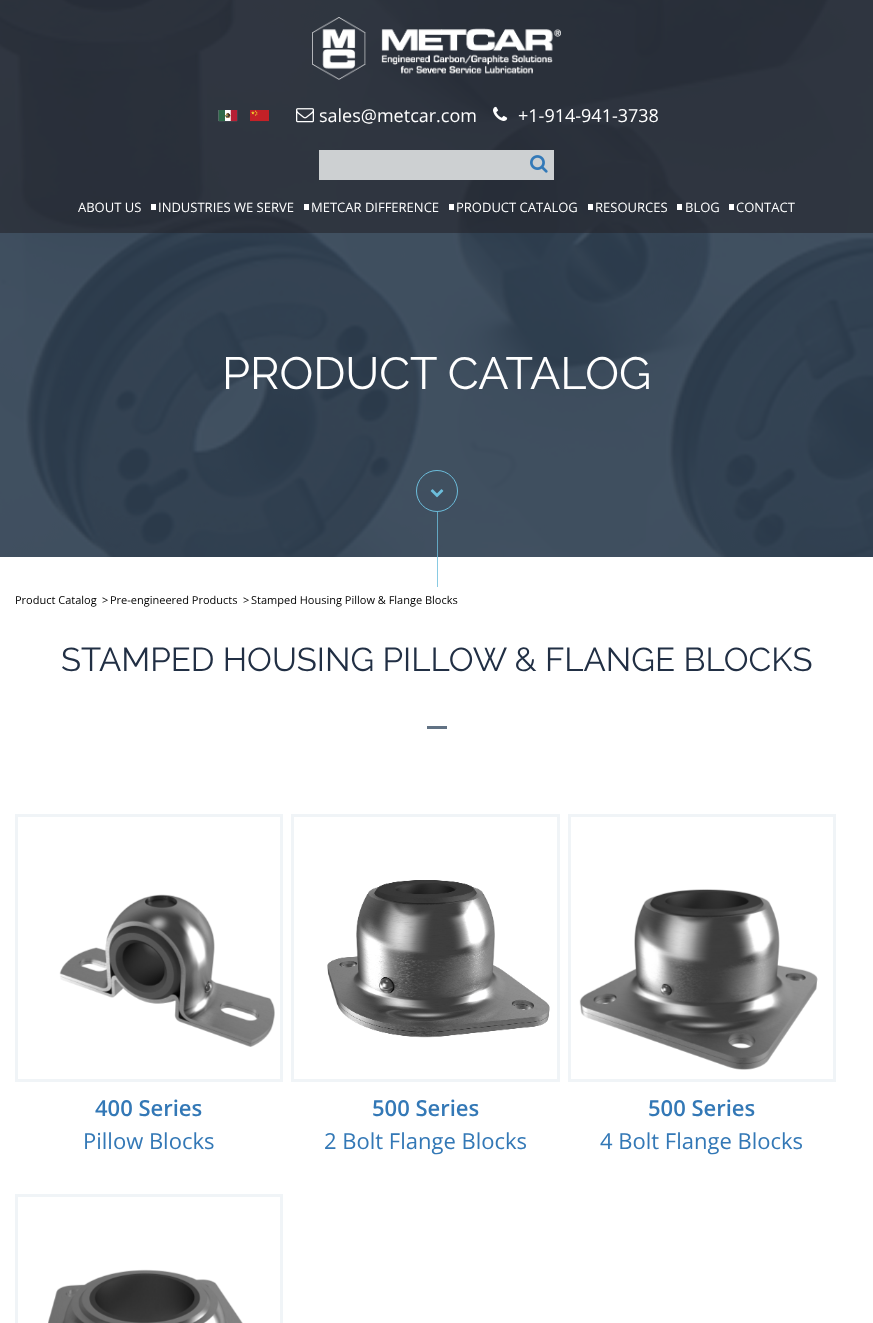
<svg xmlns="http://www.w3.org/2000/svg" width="873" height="1323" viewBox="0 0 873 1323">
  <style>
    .t1 { font: 18px Open Sans; fill: #fff; }
    .t2 { font: 13px Open Sans; fill: #fff; }
    .t3 { font: 45px Raleway; fill: #fff; }
    .t4 { font: 11px Open Sans; fill: #000; }
    .t5 { font: 33px Raleway; fill: #212f44; }
    .t6 { font: 600 22px Open Sans; fill: #3378b6; }
    .t7 { font: 22px Open Sans; fill: #3378b6; }
  </style>
  <rect width="100%" height="100%" fill="#fff"/>
  <image x="0" y="0" width="873" height="557" href="images/1.png"/>
  <rect x="0" y="0" width="873" height="233" fill="#25242c99"/>
  <image x="312" y="17" width="249" height="63" href="images/2.png"/>
  <image x="218" y="110" width="20" height="12" href="images/3.png"/>
  <image x="250" y="110" width="19" height="12" href="images/4.png"/>
  <image x="296" y="108" width="18" height="15" href="images/5.png"/>
  <text x="319" y="122" class="t1">sales@metcar.com</text>
  <image x="493" y="106" width="15" height="15" href="images/6.png"/>
  <text x="518" y="122" class="t1">+1-914-941-3738</text>
  <rect x="319" y="150" width="235" height="30" fill="#cdd0d2"/>
  <image x="530" y="155" width="18" height="18" href="images/7.png"/>
  <rect x="151" y="204" width="5" height="6" fill="#fff"/>
  <text x="78" y="212" class="t2">ABOUT US</text>
  <rect x="304" y="204" width="5" height="6" fill="#fff"/>
  <text x="158" y="212" class="t2">INDUSTRIES WE SERVE</text>
  <rect x="449" y="204" width="5" height="6" fill="#fff"/>
  <text x="311" y="212" class="t2">METCAR DIFFERENCE</text>
  <rect x="588" y="204" width="5" height="6" fill="#fff"/>
  <text x="456" y="212" class="t2">PRODUCT CATALOG</text>
  <rect x="677" y="204" width="5" height="6" fill="#fff"/>
  <text x="595" y="212" class="t2">RESOURCES</text>
  <rect x="729" y="204" width="5" height="6" fill="#fff"/>
  <text x="685" y="212" class="t2">BLOG</text>
  <text x="736" y="212" class="t2">CONTACT</text>
  <text x="222" y="389" class="t3">PRODUCT CATALOG</text>
  <circle cx="437" cy="491" r="20.5" fill="none" stroke="#6cbddb"/>
  <image x="430" y="489" width="14" height="9" href="images/8.png"/>
  <rect x="437" y="512" width="1" height="75" fill="#6cbddbcc"/>
  <text x="15" y="604" class="t4">Product Catalog</text>
  <text x="102" y="604" class="t4">&gt;</text>
  <text x="110" y="604" class="t4">Pre-engineered Products</text>
  <text x="243" y="604" class="t4">&gt;</text>
  <text x="251" y="604" class="t4">Stamped Housing Pillow &amp; Flange Blocks</text>
  <text x="61" y="671" class="t5">STAMPED HOUSING PILLOW &amp; FLANGE BLOCKS</text>
  <rect x="427" y="726" width="20" height="3" fill="#617284"/>
  <rect x="16.5" y="815.5" width="265" height="265" fill="none" stroke="#f0f4f7" stroke-width="3"/>
  <image x="59" y="894" width="216" height="153" href="images/9.png"/>
  <text x="95" y="1116" class="t6">400 Series</text>
  <text x="83" y="1149" class="t7">Pillow Blocks</text>
  <rect x="292.5" y="815.5" width="266" height="265" fill="none" stroke="#f0f4f7" stroke-width="3"/>
  <image x="327" y="880" width="223" height="158" href="images/10.png"/>
  <text x="372" y="1116" class="t6">500 Series</text>
  <text x="324" y="1149" class="t7">2 Bolt Flange Blocks</text>
  <rect x="569.5" y="815.5" width="265" height="265" fill="none" stroke="#f0f4f7" stroke-width="3"/>
  <image x="579" y="889" width="239" height="181" href="images/11.png"/>
  <text x="648" y="1116" class="t6">500 Series</text>
  <text x="600" y="1149" class="t7">4 Bolt Flange Blocks</text>
  <rect x="16.5" y="1195.5" width="265" height="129" fill="none" stroke="#f0f4f7" stroke-width="3"/>
  <image x="48" y="1269" width="195" height="54" href="images/12.png"/>
</svg>
